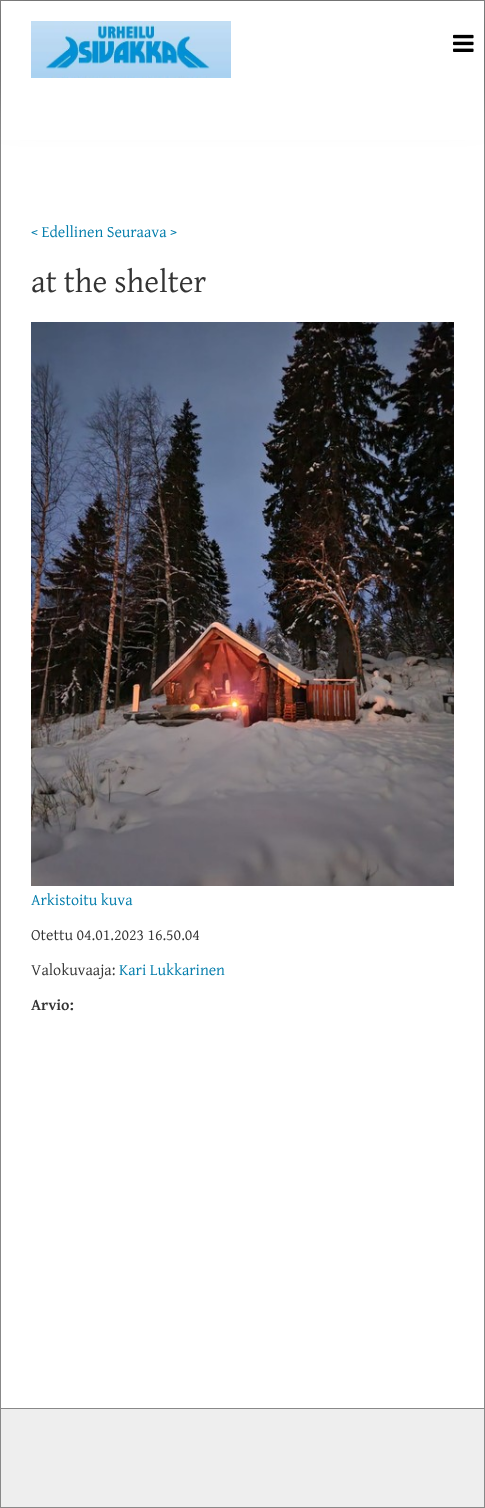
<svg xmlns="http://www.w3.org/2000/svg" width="485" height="1508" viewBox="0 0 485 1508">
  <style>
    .t1 { font: 16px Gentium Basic; fill: #007cab; }
    .t2 { font: 32px Gentium Basic; fill: #333; }
    .t3 { font: 16px Gentium Basic; fill: #333; }
    .t4 { font: bold 16px Gentium Basic; fill: #333; }
  </style>
  <defs>
    <clipPath id="clip1"><path d="M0 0H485V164H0ZM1 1H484V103H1Z" clip-rule="evenodd"/></clipPath>
  </defs>
  <rect width="100%" height="100%" fill="#fff"/>
  <rect x="0.5" y="0.5" width="484" height="1507" fill="none" stroke="#888"/>
  <g clip-path="url(#clip1)">
    <rect x="1" y="1" width="483" height="102" fill="#0000004d" filter="blur(20px)"/>
  </g>
  <image x="31" y="21" width="200" height="57" href="images/1.png"/>
  <image x="453" y="34" width="21" height="18" href="images/2.png"/>
  <rect x="1" y="103" width="483" height="37" fill="#fff"/>
  <text x="31" y="237" class="t1">&lt; Edellinen Seuraava &gt;</text>
  <text x="31" y="292" class="t2">at the shelter</text>
  <image x="31" y="322" width="423" height="564" href="images/3.png"/>
  <text x="31" y="905" class="t1">Arkistoitu kuva</text>
  <text x="31" y="940" class="t3">Otettu 04.01.2023 16.50.04</text>
  <text x="31" y="975" class="t3">Valokuvaaja:</text>
  <text x="119" y="975" class="t1">Kari Lukkarinen</text>
  <text x="31" y="1010" class="t4">Arvio:</text>
  <rect x="0.5" y="1408.5" width="484" height="99" fill="#eee" stroke="#888"/>
</svg>
